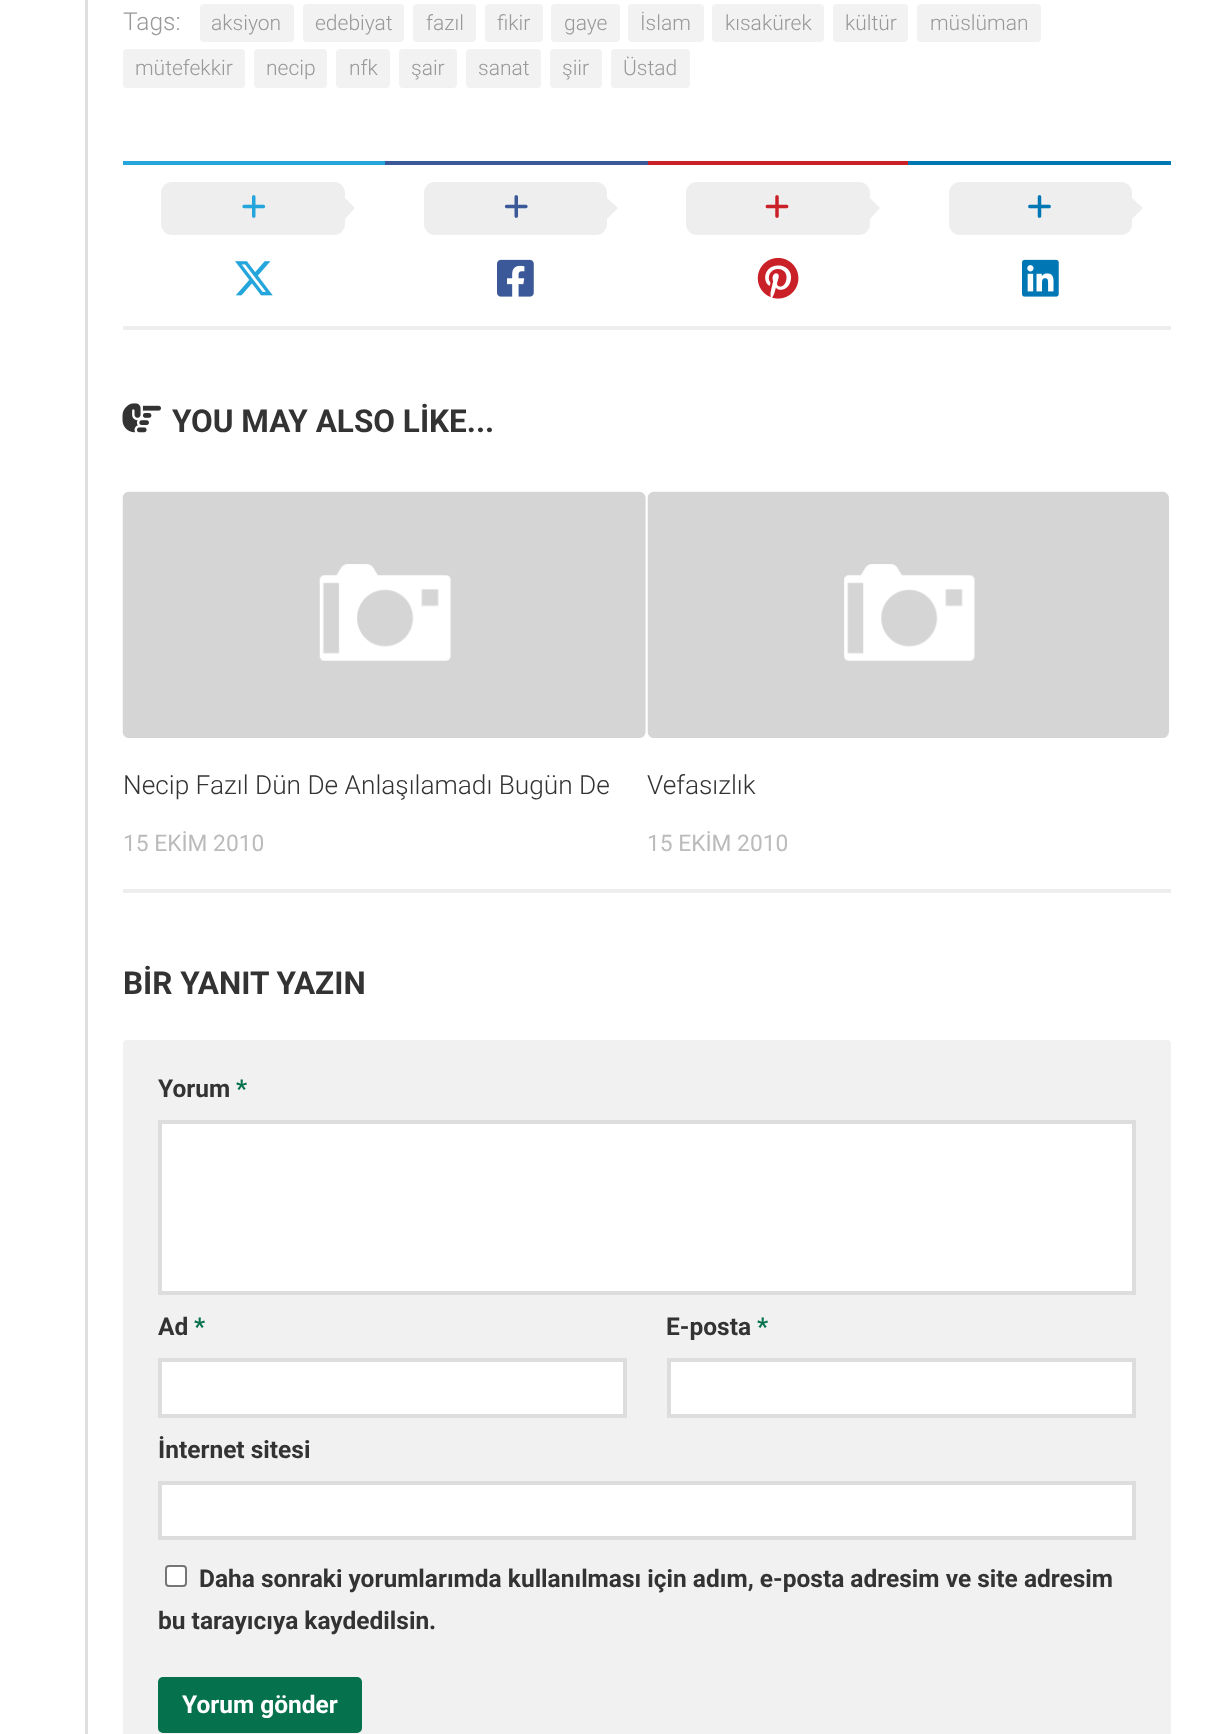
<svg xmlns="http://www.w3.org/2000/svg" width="1205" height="1734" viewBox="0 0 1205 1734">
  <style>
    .t1 { font: 300 24.5px Roboto; fill: #999; }
    .t2 { font: 300 21px Roboto; fill: #999; }
    .t3 { font: bold 31.5px Roboto; fill: #333; }
    .t4 { font: 300 26.25px Roboto; fill: #333; }
    .t5 { font: 22.75px Roboto; fill: #bbb; }
    .t6 { font: bold 24.5px Roboto; fill: #333; }
    .t7 { font: bold 24.5px Roboto; fill: #06724d; }
    .t8 { font: bold 24.5px Roboto; fill: #fff; }
  </style>
  <rect width="100%" height="100%" fill="#fff"/>
  <rect x="85" y="0" width="3" height="1734" fill="#dfdfdf"/>
  <text x="123" y="30" class="t1">Tags:</text>
  <rect x="200" y="4" width="94" height="38" rx="4" fill="#f2f2f2"/>
  <text x="211" y="30" class="t2">aksiyon</text>
  <rect x="303" y="4" width="101" height="38" rx="4" fill="#f2f2f2"/>
  <text x="315" y="30" class="t2">edebiyat</text>
  <rect x="413" y="4" width="63" height="38" rx="4" fill="#f2f2f2"/>
  <text x="426" y="30" class="t2">fazıl</text>
  <rect x="485" y="4" width="58" height="38" rx="4" fill="#f2f2f2"/>
  <text x="497" y="30" class="t2">fikir</text>
  <rect x="551" y="4" width="69" height="38" rx="4" fill="#f2f2f2"/>
  <text x="564" y="30" class="t2">gaye</text>
  <rect x="628" y="4" width="76" height="38" rx="4" fill="#f2f2f2"/>
  <text x="640" y="30" class="t2">İslam</text>
  <rect x="712" y="4" width="112" height="38" rx="4" fill="#f2f2f2"/>
  <text x="725" y="30" class="t2">kısakürek</text>
  <rect x="833" y="4" width="75" height="38" rx="4" fill="#f2f2f2"/>
  <text x="845" y="30" class="t2">kültür</text>
  <rect x="917" y="4" width="124" height="38" rx="4" fill="#f2f2f2"/>
  <text x="930" y="30" class="t2">müslüman</text>
  <rect x="123" y="49" width="122" height="39" rx="4" fill="#f2f2f2"/>
  <text x="135" y="75" class="t2">mütefekkir</text>
  <rect x="254" y="49" width="73" height="39" rx="4" fill="#f2f2f2"/>
  <text x="266" y="75" class="t2">necip</text>
  <rect x="336" y="49" width="54" height="39" rx="4" fill="#f2f2f2"/>
  <text x="349" y="75" class="t2">nfk</text>
  <rect x="399" y="49" width="58" height="39" rx="4" fill="#f2f2f2"/>
  <text x="411" y="75" class="t2">şair</text>
  <rect x="466" y="49" width="75" height="39" rx="4" fill="#f2f2f2"/>
  <text x="478" y="75" class="t2">sanat</text>
  <rect x="550" y="49" width="52" height="39" rx="4" fill="#f2f2f2"/>
  <text x="562" y="75" class="t2">şiir</text>
  <rect x="611" y="49" width="79" height="39" rx="4" fill="#f2f2f2"/>
  <text x="623" y="75" class="t2">Üstad</text>
  <rect x="123" y="326" width="1048" height="4" fill="#eee"/>
  <rect x="123" y="161" width="262" height="4" fill="#24a5db"/>
  <rect x="161" y="182" width="184" height="53" rx="11" fill="#eee"/>
  <image x="242" y="195" width="24" height="23" href="images/1.png"/>
  <path d="M345 219V198L355 208Z" fill="#eee"/>
  <image x="235" y="261" width="38" height="35" href="images/2.png"/>
  <rect x="385" y="161" width="263" height="4" fill="#3b5998"/>
  <rect x="424" y="182" width="183" height="53" rx="11" fill="#eee"/>
  <image x="504" y="195" width="24" height="23" href="images/3.png"/>
  <path d="M607 219V198L618 208Z" fill="#eee"/>
  <image x="497" y="259" width="37" height="38" href="images/4.png"/>
  <rect x="648" y="161" width="260" height="4" fill="#ca2128"/>
  <rect x="686" y="182" width="184" height="53" rx="11" fill="#eee"/>
  <image x="765" y="195" width="24" height="23" href="images/5.png"/>
  <path d="M870 219V198L880 208Z" fill="#eee"/>
  <image x="757" y="257" width="42" height="42" href="images/6.png"/>
  <rect x="908" y="161" width="263" height="4" fill="#0077b5"/>
  <rect x="949" y="182" width="183" height="53" rx="11" fill="#eee"/>
  <image x="1028" y="195" width="23" height="23" href="images/7.png"/>
  <path d="M1132 219V198L1143 208Z" fill="#eee"/>
  <image x="1022" y="259" width="37" height="38" href="images/8.png"/>
  <image x="122" y="403" width="39" height="30" href="images/9.png"/>
  <text x="172" y="432" class="t3">YOU MAY ALSO LİKE...</text>
  <rect x="123" y="889" width="1048" height="4" fill="#eee"/>
  <image x="122" y="491" width="524" height="247" href="images/10.png"/>
  <text x="123" y="794" class="t4">Necip Fazıl Dün De Anlaşılamadı Bugün De</text>
  <text x="123" y="851" class="t5">15 EKİM 2010</text>
  <image x="647" y="491" width="522" height="247" href="images/11.png"/>
  <text x="647" y="794" class="t4">Vefasızlık</text>
  <text x="647" y="851" class="t5">15 EKİM 2010</text>
  <text x="123" y="994" class="t3">BİR YANIT YAZIN</text>
  <rect x="123" y="1040" width="1048" height="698" rx="4" fill="#f1f1f1"/>
  <text x="158" y="1097" class="t6">Yorum</text>
  <text x="236" y="1097" class="t7">*</text>
  <rect x="160" y="1122" width="974" height="171" fill="#fff" stroke="#ddd" stroke-width="4"/>
  <text x="158" y="1335" class="t6">Ad</text>
  <text x="194" y="1335" class="t7">*</text>
  <rect x="160" y="1360" width="465" height="56" fill="#fff" stroke="#ddd" stroke-width="4"/>
  <text x="666" y="1335" class="t6">E-posta</text>
  <text x="757" y="1335" class="t7">*</text>
  <rect x="669" y="1360" width="465" height="56" fill="#fff" stroke="#ddd" stroke-width="4"/>
  <text x="158" y="1458" class="t6">İnternet sitesi</text>
  <rect x="160" y="1483" width="974" height="55" fill="#fff" stroke="#ddd" stroke-width="4"/>
  <rect x="166" y="1566" width="20" height="20" rx="3" fill="#fff" stroke="#767676" stroke-width="2"/>
  <text x="199" y="1587" class="t6">Daha sonraki yorumlarımda kullanılması için adım, e-posta adresim ve site adresim</text>
  <text x="158" y="1629" class="t6">bu tarayıcıya kaydedilsin.</text>
  <rect x="158" y="1677" width="204" height="56" rx="5" fill="#06724d"/>
  <text x="182" y="1713" class="t8">Yorum gönder</text>
</svg>
